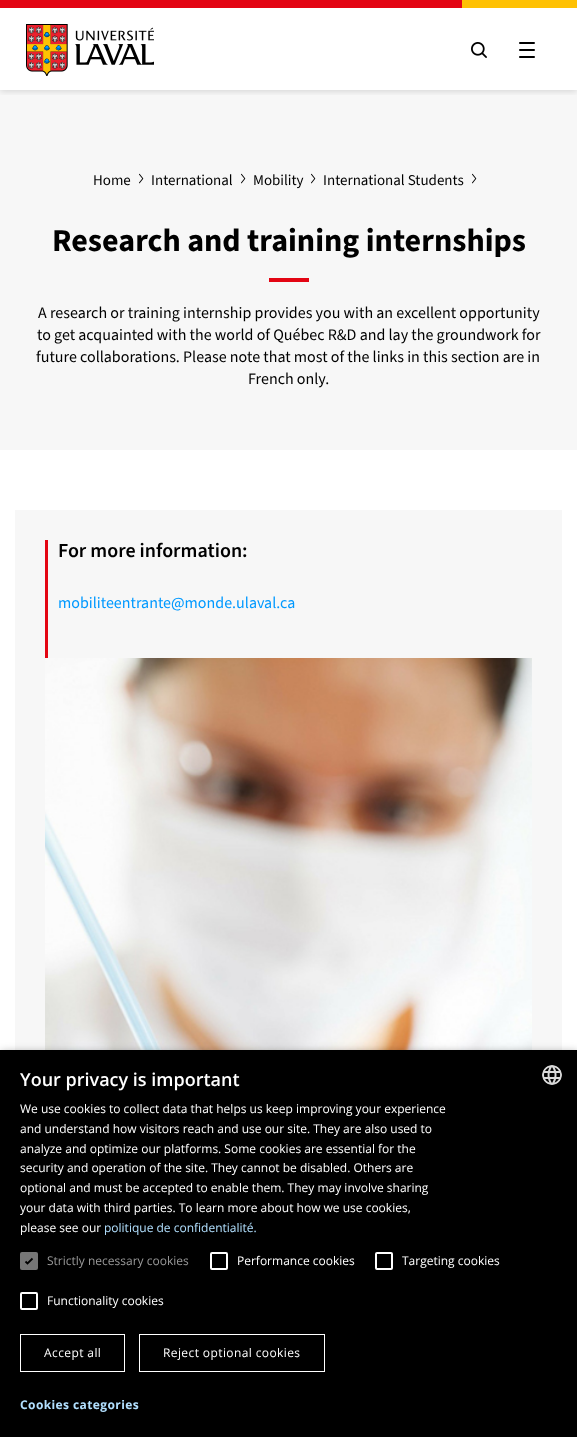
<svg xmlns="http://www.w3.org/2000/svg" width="577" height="1437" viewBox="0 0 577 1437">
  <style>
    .t1 { font: 15px 'Source Sans 3'; fill: #000; }
    .t2 { font: bold 32px 'Source Sans 3'; fill: #000; }
    .t3 { font: 16px 'Source Sans 3'; fill: #000; }
    .t4 { font: 600 20px 'Source Sans 3'; fill: #000; }
    .t5 { font: 16px 'Source Sans 3'; fill: #09f; }
    .t6 { font: 600 18px Open Sans; fill: #fff; }
    .t7 { font: 12px Open Sans; fill: #fff; }
    .t8 { font: 12px Open Sans; fill: #b2e0ff; }
    .t9 { font: 12px Open Sans; fill: #999; }
    .t10 { font: 12px Open Sans; letter-spacing: 0.4px; fill: #fff; }
    .t11 { font: bold 12px Open Sans; letter-spacing: 0.4px; fill: #b2e0ff; }
  </style>
  <defs>
    <clipPath id="clip1"><rect x="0" y="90" width="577" height="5"/></clipPath>
  </defs>
  <rect width="100%" height="100%" fill="#fff"/>
  <rect x="0" y="90" width="577" height="360" fill="#f7f7f7"/>
  <g clip-path="url(#clip1)">
    <rect x="0" y="1" width="577" height="90" fill="#00000026" filter="blur(3.5px)"/>
  </g>
  <rect x="0" y="0" width="462" height="8" fill="#e30513"/>
  <rect x="462" y="0" width="115" height="8" fill="#ffc103"/>
  <image x="26" y="24" width="128" height="52" href="images/1.png"/>
  <image x="471" y="42" width="16" height="16" href="images/2.png"/>
  <image x="519" y="42" width="16" height="16" href="images/3.png"/>
  <text x="93" y="185" class="t1">Home</text>
  <image x="139" y="173" width="5" height="11" href="images/4.png"/>
  <text x="151" y="185" class="t1">International</text>
  <image x="241" y="173" width="5" height="11" href="images/4.png"/>
  <text x="253" y="185" class="t1">Mobility</text>
  <image x="311" y="173" width="5" height="11" href="images/4.png"/>
  <text x="323" y="185" class="t1">International Students</text>
  <image x="472" y="173" width="5" height="11" href="images/4.png"/>
  <text x="52" y="251" class="t2">Research and training internships</text>
  <rect x="269" y="278" width="40" height="4" fill="#e30513"/>
  <text x="38" y="318" class="t3">A research or training internship provides you with an excellent opportunity</text>
  <text x="37" y="340" class="t3">to get acquainted with the world of Québec R&amp;D and lay the groundwork for</text>
  <text x="36" y="362" class="t3">future collaborations. Please note that most of the links in this section are in</text>
  <text x="248" y="384" class="t3">French only.</text>
  <rect x="15" y="510" width="547" height="540" fill="#f7f7f7"/>
  <rect x="45" y="540" width="3" height="118" fill="#e30513"/>
  <text x="58" y="557" class="t4">For more information:</text>
  <text x="58" y="608" class="t5">mobiliteentrante@monde.ulaval.ca</text>
  <image x="45" y="658" width="487" height="392" href="images/5.png"/>
  <rect x="1" y="1052" width="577" height="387" fill="#00000059" filter="blur(4px)"/>
  <rect x="0" y="1050" width="577" height="387" fill="#000"/>
  <text x="20" y="1086" class="t6">Your privacy is important</text>
  <image x="542" y="1065" width="20" height="20" href="images/6.png"/>
  <text x="20" y="1113" class="t7">We use cookies to collect data that helps us keep improving your experience</text>
  <text x="20" y="1133" class="t7">and understand how visitors reach and use our site. They are also used to</text>
  <text x="20" y="1153" class="t7">analyze and optimize our platforms. Some cookies are essential for the</text>
  <text x="20" y="1172" class="t7">security and operation of the site. They cannot be disabled. Others are</text>
  <text x="20" y="1192" class="t7">optional and must be accepted to enable them. They may involve sharing</text>
  <text x="20" y="1212" class="t7">your data with third parties. To learn more about how we use cookies,</text>
  <text x="20" y="1232" class="t7">please see our</text>
  <text x="104" y="1232" class="t8">politique de confidentialité.</text>
  <rect x="20" y="1252" width="18" height="18" rx="2" fill="#767676"/>
  <path d="M25.5 1261.5L27.5 1263.5L32.5 1258.5" fill="none" stroke="#000" stroke-width="1.8"/>
  <text x="47" y="1265" class="t9">Strictly necessary cookies</text>
  <rect x="211" y="1253" width="16" height="16" rx="1" fill="none" stroke="#fff" stroke-width="2"/>
  <text x="237" y="1265" class="t7">Performance cookies</text>
  <rect x="376" y="1253" width="16" height="16" rx="1" fill="none" stroke="#fff" stroke-width="2"/>
  <text x="402" y="1265" class="t7">Targeting cookies</text>
  <rect x="21" y="1293" width="16" height="16" rx="1" fill="none" stroke="#fff" stroke-width="2"/>
  <text x="47" y="1305" class="t7">Functionality cookies</text>
  <rect x="20.5" y="1334.5" width="104" height="37" fill="none" stroke="#fff"/>
  <text x="44" y="1357" class="t10">Accept all</text>
  <rect x="139.5" y="1334.5" width="185" height="37" fill="none" stroke="#fff"/>
  <text x="163" y="1357" class="t10">Reject optional cookies</text>
  <text x="20" y="1409" class="t11">Cookies categories</text>
</svg>
